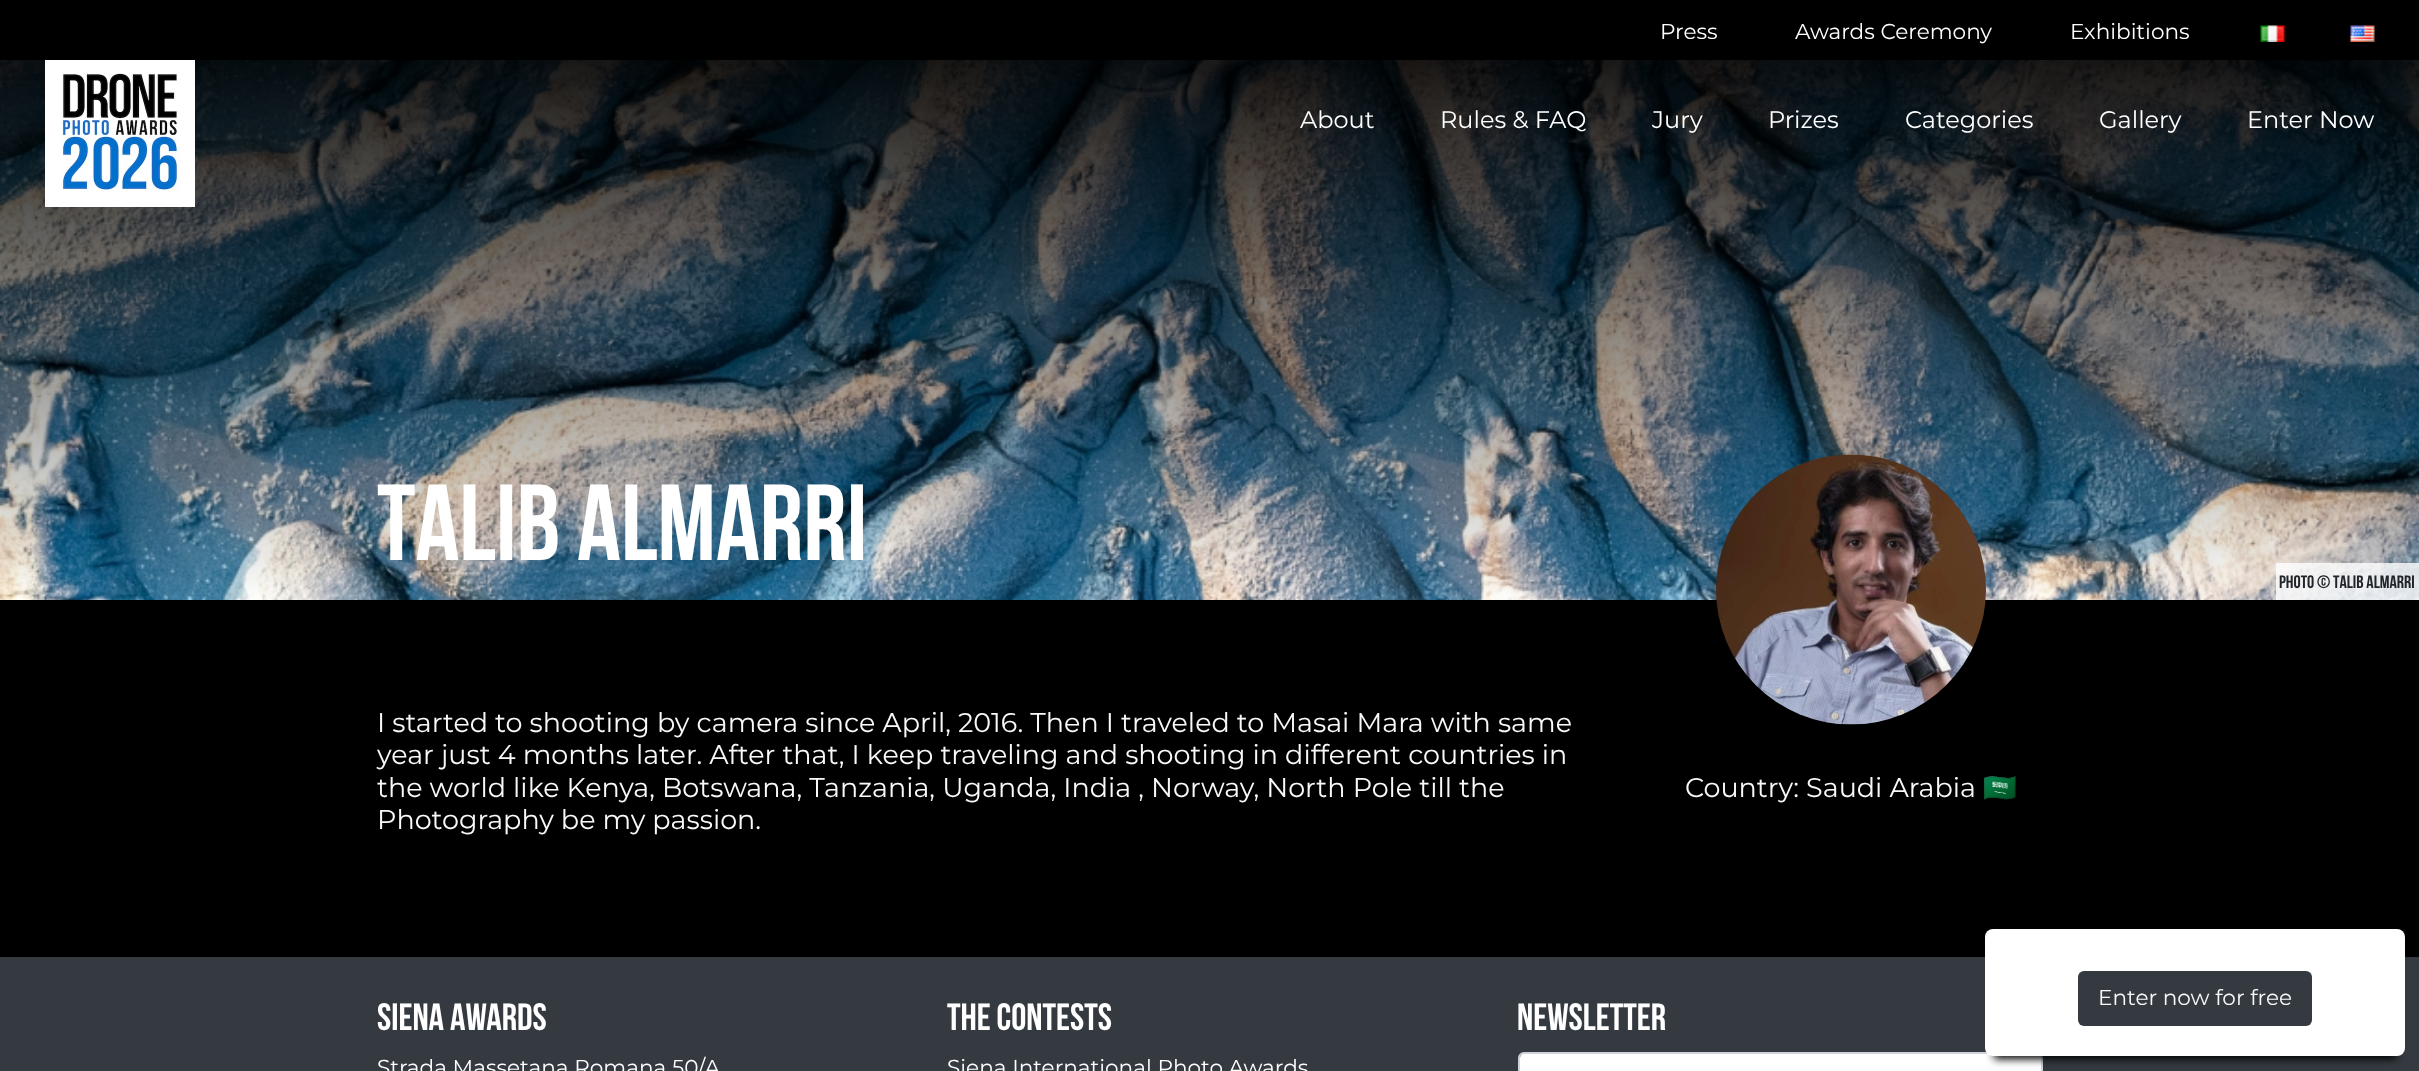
<svg xmlns="http://www.w3.org/2000/svg" width="2419" height="1071" viewBox="0 0 2419 1071">
  <style>
    .t1 { font: 100 21.6px Montserrat; fill: #fff; }
    .t2 { font: 100 24px Montserrat; fill: #fff; }
    .t3 { font: bold 108px Bebas Neue; fill: #fff; }
    .t4 { font: bold 18px Bebas Neue; fill: #212529; }
    .t5 { font: 100 27px Montserrat; fill: #f8f9fa; }
    .t6 { font: 27px Noto Color Emoji; fill: #f8f9fa; }
    .t7 { font: 100 21.6px Montserrat; fill: #f8f9fa; }
    .t8 { font: bold 38px Bebas Neue; fill: #fff; }
  </style>
  <rect width="100%" height="100%" fill="#000"/>
  <text x="1660" y="39" class="t1">Press</text>
  <text x="1795" y="39" class="t1">Awards Ceremony</text>
  <text x="2070" y="39" class="t1">Exhibitions</text>
  <image x="2260" y="25" width="25" height="17" href="images/1.png"/>
  <image x="2350" y="25" width="25" height="17" href="images/2.png"/>
  <image x="0" y="60" width="2419" height="540" href="images/4.png"/>
  <image x="45" y="60" width="150" height="147" href="images/3.png"/>
  <text x="1300" y="128" class="t2">About</text>
  <text x="1440" y="128" class="t2">Rules &amp; FAQ</text>
  <text x="1652" y="128" class="t2">Jury</text>
  <text x="1768" y="128" class="t2">Prizes</text>
  <text x="1905" y="128" class="t2">Categories</text>
  <text x="2099" y="128" class="t2">Gallery</text>
  <text x="2247" y="128" class="t2">Enter Now</text>
  <text x="377" y="560" class="t3">TALIB ALMARRI</text>
  <rect x="2276" y="563" width="143" height="37" fill="#ffffffcc"/>
  <text x="2279" y="588" class="t4">PHOTO © TALIB ALMARRI</text>
  <text x="377" y="732" class="t5">I started to shooting by camera since April, 2016. Then I traveled to Masai Mara with same</text>
  <text x="377" y="764" class="t5">year just 4 months later. After that, I keep traveling and shooting in different countries in</text>
  <text x="377" y="797" class="t5">the world like Kenya, Botswana, Tanzania, Uganda, India , Norway, North Pole till the</text>
  <text x="377" y="829" class="t5">Photography be my passion.</text>
  <image x="1716" y="454" width="270" height="271" href="images/5.png"/>
  <text x="1685" y="797" class="t5">Country: Saudi Arabia</text>
  <text x="1983" y="797" class="t6">🇸🇦</text>
  <rect x="0" y="957" width="2419" height="114" fill="#343a40"/>
  <rect x="1520" y="1053" width="522" height="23" rx="5" fill="#fff"/>
  <rect x="1519" y="1053" width="523" height="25" rx="5" fill="none" stroke="#ced4da" stroke-width="2"/>
  <rect x="1994" y="950" width="402" height="109" fill="#000" filter="blur(4.5px)"/>
  <rect x="1985" y="929" width="420" height="127" rx="8" fill="#fff"/>
  <rect x="2078" y="971" width="234" height="55" rx="6" fill="#343a40"/>
  <text x="2098" y="1005" class="t7">Enter now for free</text>
  <text x="377" y="1030" class="t8">Siena Awards</text>
  <text x="377" y="1075" class="t1">Strada Massetana Romana 50/A</text>
  <text x="947" y="1030" class="t8">The contests</text>
  <text x="947" y="1075" class="t1">Siena International Photo Awards</text>
  <text x="1517" y="1030" class="t8">Newsletter</text>
</svg>
